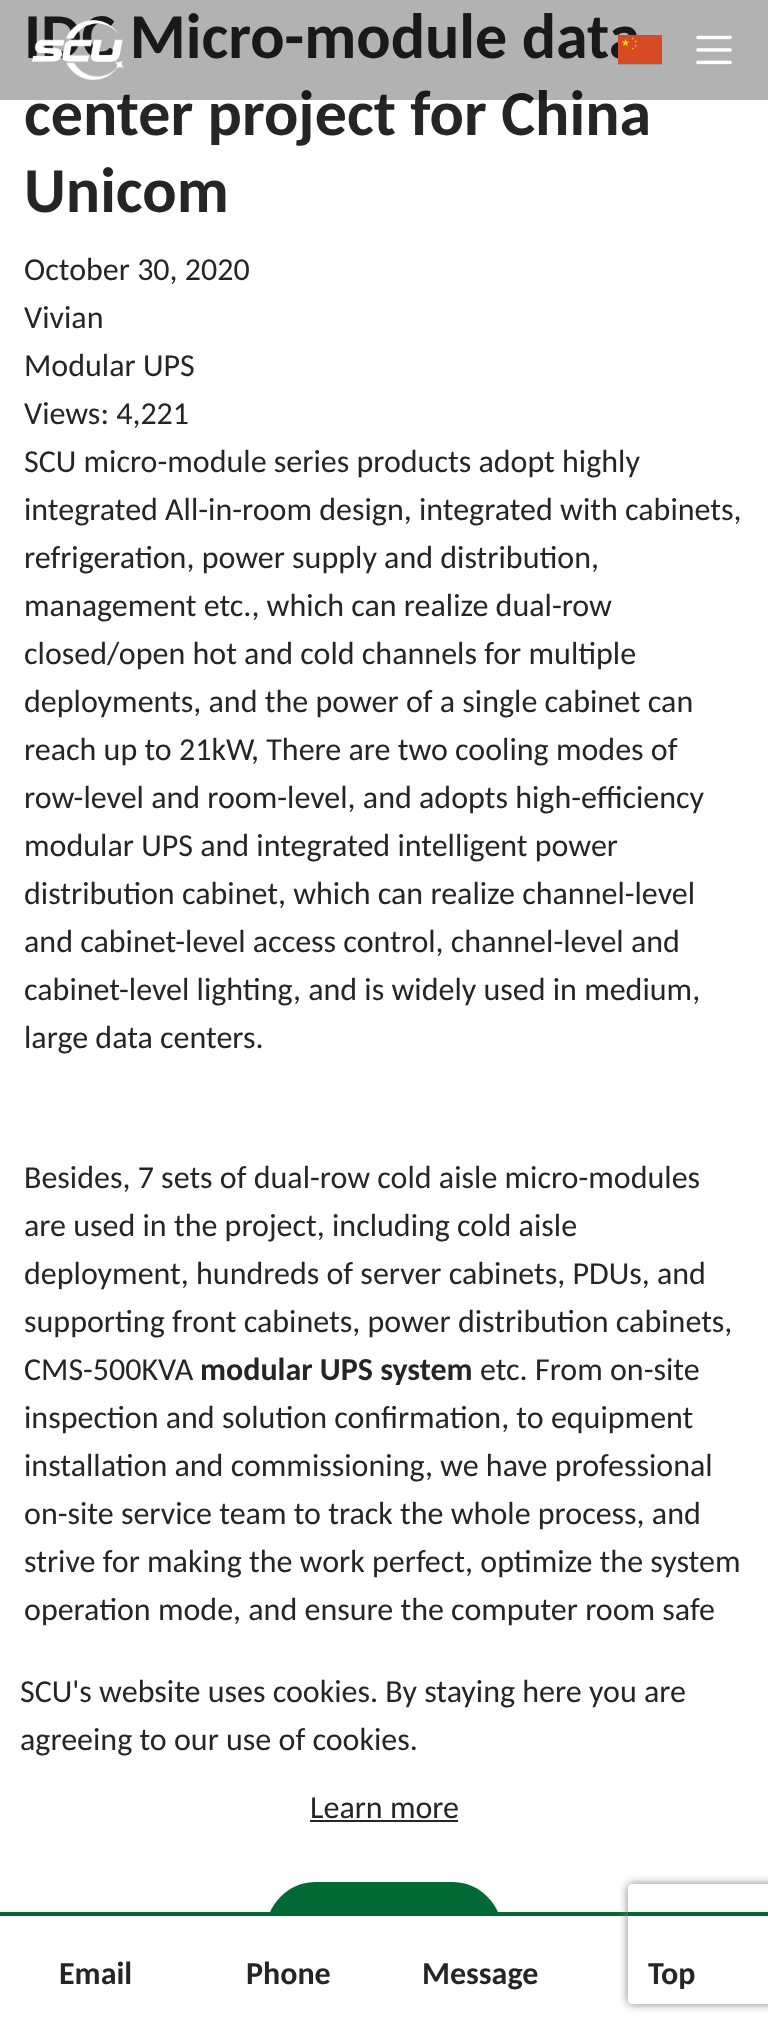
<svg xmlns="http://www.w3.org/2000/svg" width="768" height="2032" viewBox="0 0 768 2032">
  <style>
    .t1 { font: bold 64px Carlito; fill: #252525; }
    .t2 { font: 32px Carlito; fill: #252525; }
    .t3 { font: bold 32px Carlito; fill: #252525; }
  </style>
  <defs>
    <clipPath id="clip1"><path d="M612 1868H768V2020H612ZM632 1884H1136C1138 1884 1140 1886 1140 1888V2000C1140 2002 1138 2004 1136 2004H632C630 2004 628 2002 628 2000V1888C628 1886 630 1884 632 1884Z" clip-rule="evenodd"/></clipPath>
  </defs>
  <rect width="100%" height="100%" fill="#fff"/>
  <text x="24" y="58" class="t1">IDC Micro-module data</text>
  <text x="24" y="135" class="t1">center project for China</text>
  <rect x="0" y="0" width="768" height="100" fill="#0000004d"/>
  <image x="32" y="20" width="92" height="60" href="images/1.png"/>
  <image x="618" y="35" width="44" height="30" href="images/2.png"/>
  <image x="696" y="35" width="36" height="30" href="images/3.png"/>
  <text x="24" y="212" class="t1">Unicom</text>
  <text x="24" y="280" class="t2">October 30, 2020</text>
  <text x="24" y="328" class="t2">Vivian</text>
  <text x="24" y="376" class="t2">Modular UPS</text>
  <text x="24" y="424" class="t2">Views: 4,221</text>
  <text x="24" y="472" class="t2">SCU micro-module series products adopt highly</text>
  <text x="24" y="520" class="t2">integrated All-in-room design, integrated with cabinets,</text>
  <text x="24" y="568" class="t2">refrigeration, power supply and distribution,</text>
  <text x="24" y="616" class="t2">management etc., which can realize dual-row</text>
  <text x="24" y="664" class="t2">closed/open hot and cold channels for multiple</text>
  <text x="24" y="712" class="t2">deployments, and the power of a single cabinet can</text>
  <text x="24" y="760" class="t2">reach up to 21kW, There are two cooling modes of</text>
  <text x="24" y="808" class="t2">row-level and room-level, and adopts high-efficiency</text>
  <text x="24" y="856" class="t2">modular UPS and integrated intelligent power</text>
  <text x="24" y="904" class="t2">distribution cabinet, which can realize channel-level</text>
  <text x="24" y="952" class="t2">and cabinet-level access control, channel-level and</text>
  <text x="24" y="1000" class="t2">cabinet-level lighting, and is widely used in medium,</text>
  <text x="24" y="1048" class="t2">large data centers.</text>
  <text x="24" y="1188" class="t2">Besides, 7 sets of dual-row cold aisle micro-modules</text>
  <text x="24" y="1236" class="t2">are used in the project, including cold aisle</text>
  <text x="24" y="1284" class="t2">deployment, hundreds of server cabinets, PDUs, and</text>
  <text x="24" y="1332" class="t2">supporting front cabinets, power distribution cabinets,</text>
  <text x="24" y="1380" class="t2">CMS-500KVA</text>
  <text x="200" y="1380" class="t3">modular UPS system</text>
  <text x="480" y="1380" class="t2">etc. From on-site</text>
  <text x="24" y="1428" class="t2">inspection and solution confirmation, to equipment</text>
  <text x="24" y="1476" class="t2">installation and commissioning, we have professional</text>
  <text x="24" y="1524" class="t2">on-site service team to track the whole process, and</text>
  <text x="24" y="1572" class="t2">strive for making the work perfect, optimize the system</text>
  <text x="24" y="1620" class="t2">operation mode, and ensure the computer room safe</text>
  <text x="20" y="1702" class="t2">SCU's website uses cookies. By staying here you are</text>
  <text x="20" y="1750" class="t2">agreeing to our use of cookies.</text>
  <text x="310" y="1818" class="t2">Learn more</text>
  <rect x="310" y="1820" width="148" height="2" fill="#252525"/>
  <rect x="269" y="1885" width="230" height="94" rx="47" fill="#006934" stroke="#006934" stroke-width="6"/>
  <rect x="0" y="1912" width="768" height="4" fill="#006934"/>
  <g clip-path="url(#clip1)">
    <rect x="628" y="1884" width="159" height="120" rx="4" fill="#808080" filter="blur(5px)"/>
  </g>
  <rect x="266" y="1916" width="236" height="66" fill="#fff"/>
  <text x="59" y="1984" class="t3">Email</text>
  <text x="246" y="1984" class="t3">Phone</text>
  <text x="422" y="1984" class="t3">Message</text>
  <text x="648" y="1984" class="t3">Top</text>
</svg>
